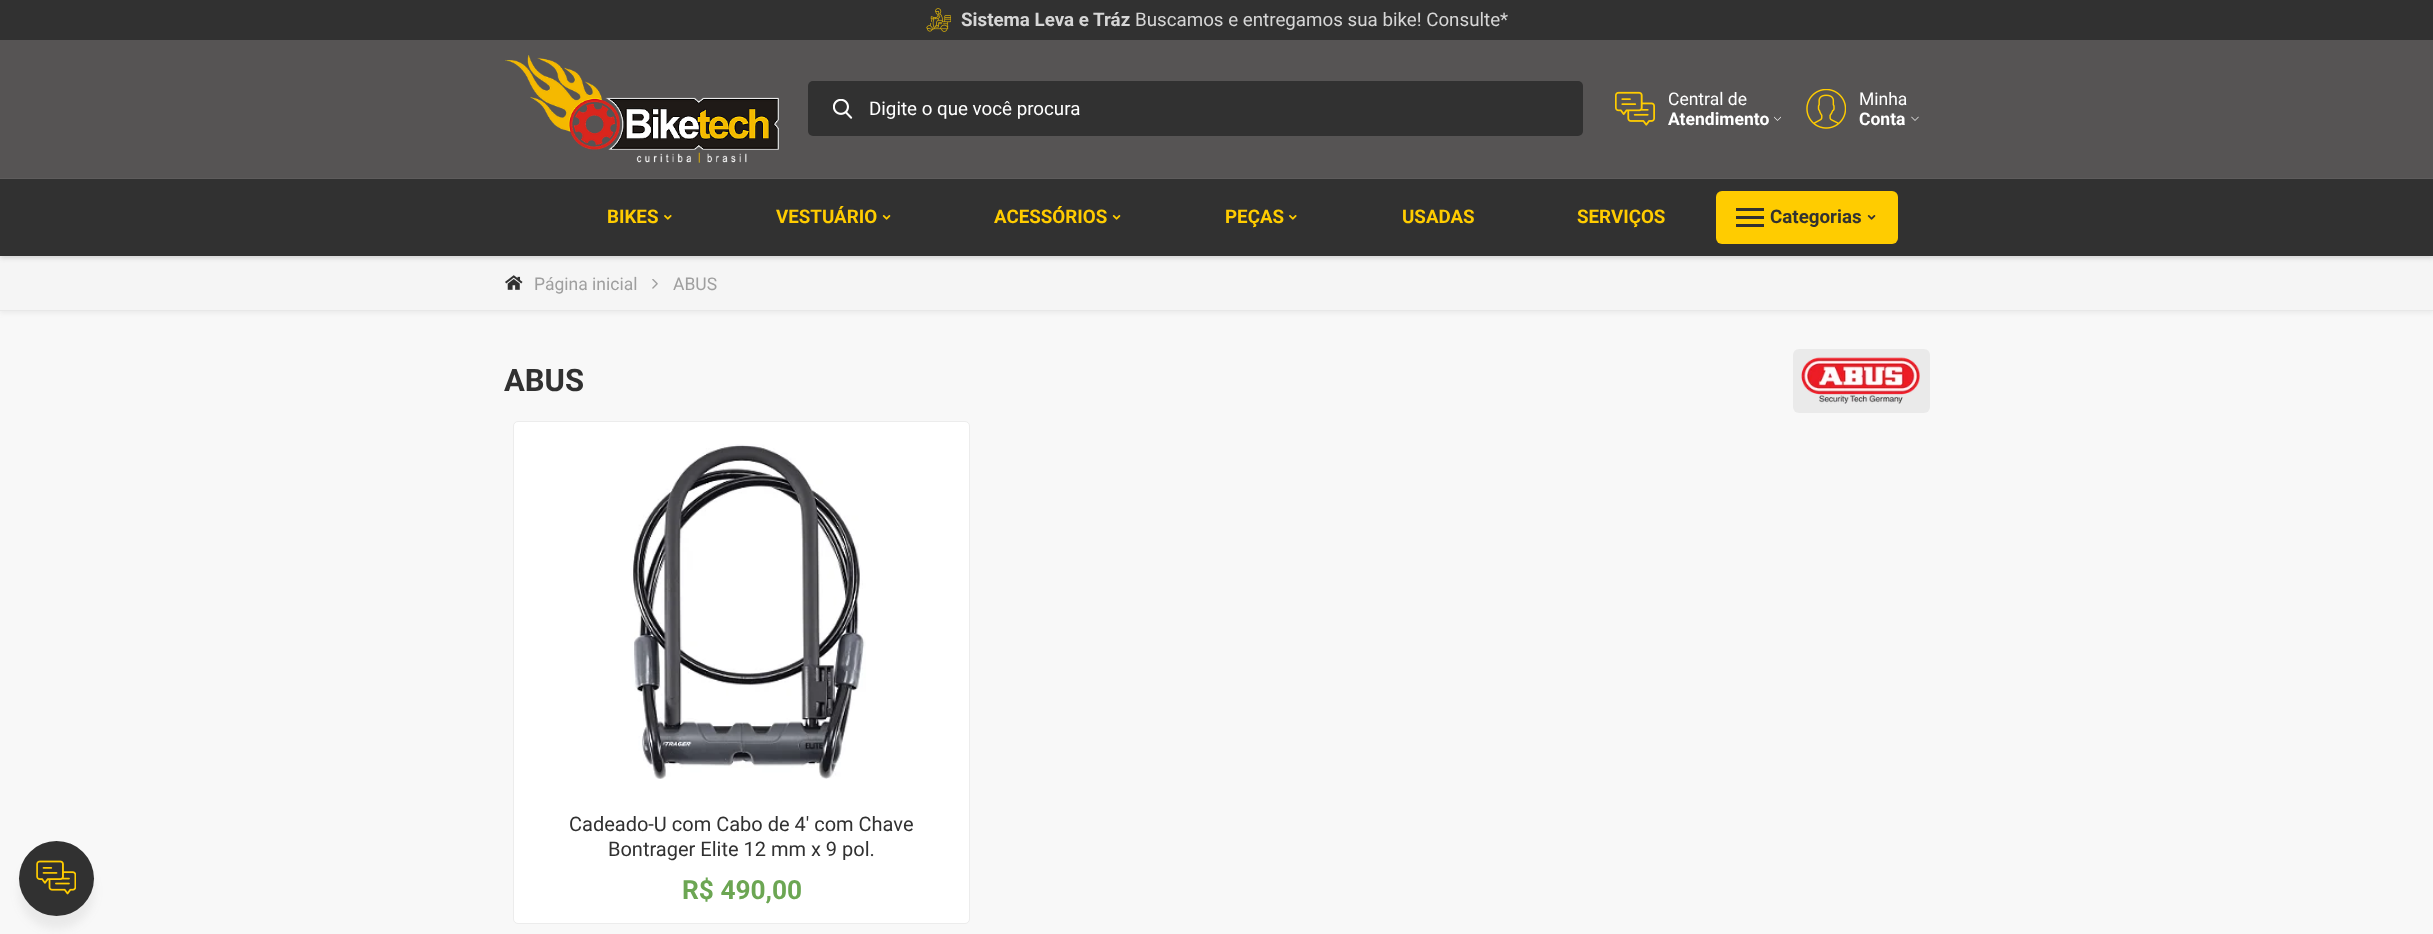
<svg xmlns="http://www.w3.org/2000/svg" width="2433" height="934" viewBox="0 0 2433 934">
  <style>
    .t1 { font: bold 18.75px Roboto; fill: #d6d6d6; }
    .t2 { font: 18.75px Roboto; fill: #d6d6d6; }
    .t3 { font: 18.75px Roboto; fill: #fff; }
    .t4 { font: 17.5px Roboto; fill: #fff; }
    .t5 { font: bold 17.5px Roboto; fill: #fff; }
    .t6 { font: bold 18.75px Roboto; fill: #fc0; }
    .t7 { font: bold 18.75px Roboto; fill: #313131; }
    .t8 { font: 17.5px Roboto; fill: #9f9f9f; }
    .t9 { font: bold 31px Roboto; fill: #313131; }
    .t10 { font: 20px Roboto; fill: #313131; }
    .t11 { font: bold 26.25px Roboto; fill: #6ca653; }
  </style>
  <rect width="100%" height="100%" fill="#f8f8f8"/>
  <rect x="19" y="854" width="75" height="75" rx="37.5" fill="#6767671a" filter="blur(5px)"/>
  <circle cx="56.5" cy="878.5" r="37.5" fill="#313131"/>
  <image x="36" y="860" width="40" height="35" href="images/1.png"/>
  <rect x="0" y="0" width="2433" height="40" fill="#313131"/>
  <image x="926" y="8" width="25" height="24" href="images/2.png"/>
  <text x="961" y="26" class="t1">Sistema Leva e Tráz</text>
  <text x="1135" y="26" class="t2">Buscamos e entregamos sua bike! Consulte*</text>
  <rect x="0" y="258" width="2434" height="55" fill="#8989891f" filter="blur(2.5px)"/>
  <rect x="0" y="258" width="2433" height="52" fill="#f5f5f5"/>
  <rect x="0" y="180" width="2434" height="78" fill="#52525233" filter="blur(2.5px)"/>
  <rect x="0" y="40" width="2433" height="138" fill="#565454"/>
  <rect x="0" y="178" width="2433" height="1" fill="#5e5c5c"/>
  <image x="505" y="55" width="274" height="108" href="images/3.png"/>
  <rect x="808" y="81" width="775" height="55" rx="5" fill="#313131"/>
  <image x="833" y="99" width="20" height="20" href="images/4.png"/>
  <text x="869" y="115" class="t3">Digite o que você procura</text>
  <image x="1615" y="91" width="40" height="35" href="images/5.png"/>
  <text x="1668" y="105" class="t4">Central de</text>
  <text x="1668" y="125" class="t5">Atendimento</text>
  <image x="1774" y="116" width="7" height="5" href="images/6.png"/>
  <image x="1806" y="89" width="40" height="40" href="images/7.png"/>
  <text x="1859" y="105" class="t4">Minha</text>
  <text x="1859" y="125" class="t5">Conta</text>
  <image x="1911" y="116" width="8" height="5" href="images/8.png"/>
  <rect x="0" y="179" width="2433" height="77" fill="#313131"/>
  <text x="607" y="223" class="t6">BIKES</text>
  <image x="664" y="215" width="8" height="5" href="images/9.png"/>
  <text x="776" y="223" class="t6">VESTUÁRIO</text>
  <image x="882" y="215" width="9" height="5" href="images/10.png"/>
  <text x="994" y="223" class="t6">ACESSÓRIOS</text>
  <image x="1112" y="215" width="9" height="5" href="images/10.png"/>
  <text x="1225" y="223" class="t6">PEÇAS</text>
  <image x="1289" y="215" width="8" height="5" href="images/9.png"/>
  <text x="1402" y="223" class="t6">USADAS</text>
  <text x="1577" y="223" class="t6">SERVIÇOS</text>
  <rect x="1716" y="191" width="182" height="53" rx="6" fill="#fc0"/>
  <rect x="1736" y="224" width="28" height="3" fill="#313131"/>
  <rect x="1736" y="216" width="28" height="3" fill="#313131"/>
  <rect x="1736" y="208" width="28" height="3" fill="#313131"/>
  <text x="1770" y="223" class="t7">Categorias</text>
  <image x="1867" y="215" width="9" height="5" href="images/11.png"/>
  <rect x="0" y="310" width="2433" height="1" fill="#e8e8e8"/>
  <image x="505" y="275" width="18" height="15" href="images/12.png"/>
  <text x="534" y="290" class="t8">Página inicial</text>
  <image x="652" y="279" width="6" height="10" href="images/13.png"/>
  <text x="673" y="290" class="t8">ABUS</text>
  <text x="504" y="391" class="t9">ABUS</text>
  <rect x="1793" y="349" width="137" height="64" rx="6" fill="#eaeaea"/>
  <image x="1801" y="357" width="119" height="47" href="images/14.png"/>
  <rect x="513.5" y="421.5" width="456" height="502" rx="4.5" fill="#fff" stroke="#ececec"/>
  <image x="630" y="444" width="236" height="335" href="images/15.png"/>
  <text x="569" y="831" class="t10">Cadeado-U com Cabo de 4' com Chave</text>
  <text x="608" y="856" class="t10">Bontrager Elite 12 mm x 9 pol.</text>
  <text x="682" y="899" class="t11">R$ 490,00</text>
</svg>
